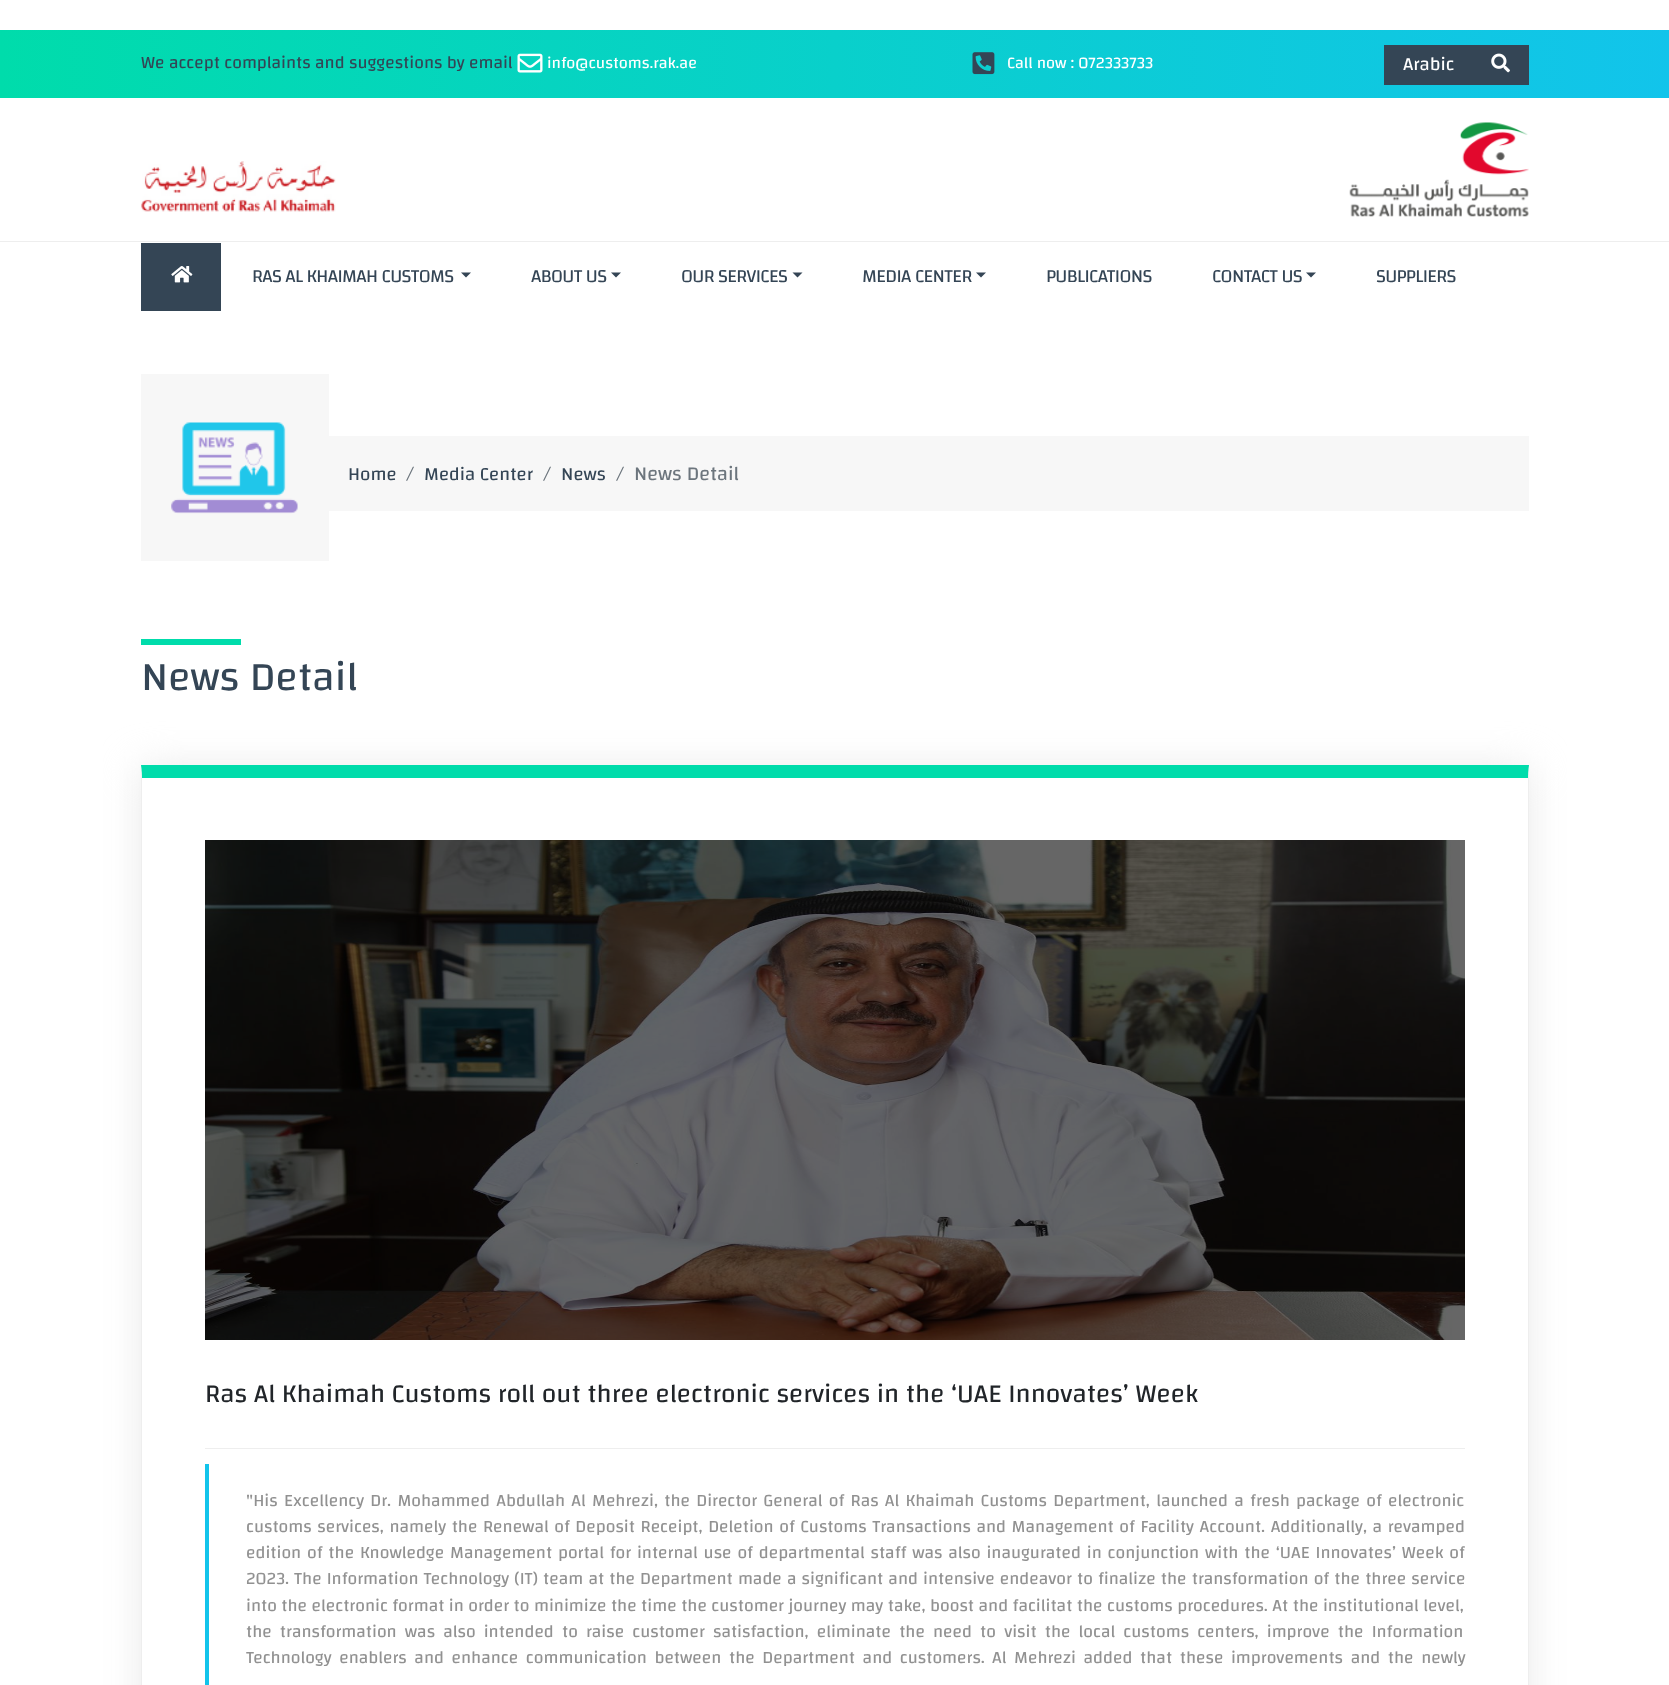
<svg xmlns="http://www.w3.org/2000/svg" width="1669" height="1685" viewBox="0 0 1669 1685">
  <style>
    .t1 { font: 17.5px Changa; fill: #344555; }
    .t2 { font: 16.25px Changa; fill: #fff; }
    .t3 { font: 18.75px Changa; fill: #fff; }
    .t4 { font: 18.75px Changa; letter-spacing: -0.6px; fill: #344555; }
    .t5 { font: 18.75px Changa; fill: #344555; }
    .t6 { font: 20px Changa; fill: #6c757d; }
    .t7 { font: 41.25px Changa; fill: #344555; }
    .t8 { font: 26.25px Changa; fill: #212529; }
    .t9 { font: 17.5px Changa; fill: #919191; }
  </style>
  <defs>
    <linearGradient id="g1" gradientUnits="userSpaceOnUse" x1="0" y1="64" x2="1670" y2="64"><stop offset="0" stop-color="#00dcab"/><stop offset="1" stop-color="#12c4eb"/></linearGradient>
    <clipPath id="clip1"><path d="M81 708H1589V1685H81ZM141 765H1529V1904H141Z" clip-rule="evenodd"/></clipPath>
  </defs>
  <rect width="100%" height="100%" fill="#fff"/>
  <rect x="0" y="30" width="1669" height="68" fill="url(#g1)"/>
  <text x="141" y="68" class="t1">We accept complaints and suggestions by email</text>
  <image x="517" y="53" width="26" height="20" href="images/1.png"/>
  <text x="547" y="68" class="t2">info@customs.rak.ae</text>
  <image x="972" y="52" width="23" height="23" href="images/2.png"/>
  <text x="1007" y="68" class="t2">Call now : 072333733</text>
  <rect x="1384" y="45" width="145" height="40" fill="#344555"/>
  <image x="1491" y="53" width="19" height="20" href="images/3.png"/>
  <text x="1403" y="70" class="t3">Arabic</text>
  <image x="141" y="161" width="195" height="51" href="images/4.png"/>
  <image x="1349" y="122" width="180" height="95" href="images/5.png"/>
  <rect x="0" y="241" width="1669" height="1" fill="#eee"/>
  <rect x="141" y="243" width="80" height="68" fill="#344555"/>
  <image x="171" y="266" width="22" height="17" href="images/6.png"/>
  <text x="252" y="282" class="t4">RAS AL KHAIMAH CUSTOMS</text>
  <path d="M461 272.5H471L466 277.5Z" fill="#344555"/>
  <text x="531" y="282" class="t4">ABOUT US</text>
  <path d="M611 272.5H621L616 277.5Z" fill="#344555"/>
  <text x="681" y="282" class="t4">OUR SERVICES</text>
  <path d="M792.5 272.5H802.5L797.5 277.5Z" fill="#344555"/>
  <text x="862" y="282" class="t4">MEDIA CENTER</text>
  <path d="M976 272.5H986L981 277.5Z" fill="#344555"/>
  <text x="1046" y="282" class="t4">PUBLICATIONS</text>
  <text x="1212" y="282" class="t4">CONTACT US</text>
  <path d="M1306 272.5H1316L1311 277.5Z" fill="#344555"/>
  <text x="1376" y="282" class="t4">SUPPLIERS</text>
  <rect x="141" y="374" width="188" height="187" fill="#f7f7f7"/>
  <image x="171" y="422" width="127" height="92" href="images/7.png"/>
  <rect x="329" y="436" width="1200" height="75" fill="#f7f7f7"/>
  <text x="348" y="480" class="t5">Home</text>
  <text x="406" y="480" class="t6">/</text>
  <text x="424" y="480" class="t5">Media Center</text>
  <text x="543" y="480" class="t6">/</text>
  <text x="561" y="480" class="t5">News</text>
  <text x="616" y="480" class="t6">/</text>
  <text x="634" y="480" class="t6">News Detail</text>
  <rect x="141" y="639" width="100" height="6" fill="#00dcab"/>
  <text x="141" y="690" class="t7">News Detail</text>
  <g clip-path="url(#clip1)">
    <rect x="141" y="768" width="1388" height="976" fill="#e9e9e9" filter="blur(19.5px)"/>
  </g>
  <path d="M141 765H1529L1528 778H142Z" fill="#00dcab"/>
  <path d="M1529 765V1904L1528 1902V778Z" fill="#eee"/>
  <path d="M141 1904V765L142 778V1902Z" fill="#eee"/>
  <image x="205" y="840" width="1260" height="500" href="images/8.png"/>
  <rect x="205" y="1448" width="1260" height="1" fill="#eee"/>
  <text x="205" y="1402" class="t8">Ras Al Khaimah Customs roll out three electronic services in the ‘UAE Innovates’ Week</text>
  <rect x="205" y="1464" width="4" height="221" fill="#12c4eb"/>
  <text x="246" y="1506" word-spacing="1.9" class="t9">"His Excellency Dr. Mohammed Abdullah Al Mehrezi, the Director General of Ras Al Khaimah Customs Department, launched a fresh package of electronic</text>
  <text x="246" y="1532" word-spacing="1.2" class="t9">customs services, namely the Renewal of Deposit Receipt, Deletion of Customs Transactions and Management of Facility Account. Additionally, a revamped</text>
  <text x="246" y="1558" word-spacing="1.45" class="t9">edition of the Knowledge Management portal for internal use of departmental staff was also inaugurated in conjunction with the ‘UAE Innovates’ Week of</text>
  <text x="246" y="1584" class="t9">2023.</text>
  <text x="294" y="1584" word-spacing="0.75" class="t9">The Information Technology (IT) team at the Department made a significant and intensive endeavor to finalize the transformation of the three service</text>
  <text x="246" y="1611" word-spacing="0.1" class="t9">into the electronic format in order to minimize the time the customer journey may take, boost and facilitat the customs procedures. At the institutional level,</text>
  <text x="246" y="1637" word-spacing="3.75" class="t9">the transformation was also intended to raise customer satisfaction, eliminate the need to visit the local customs centers, improve the Information</text>
  <text x="246" y="1663" word-spacing="3.25" class="t9">Technology enablers and enhance communication between the Department and customers.</text>
  <text x="992" y="1663" word-spacing="3.25" class="t9">Al Mehrezi added that these improvements and the newly</text>
</svg>
